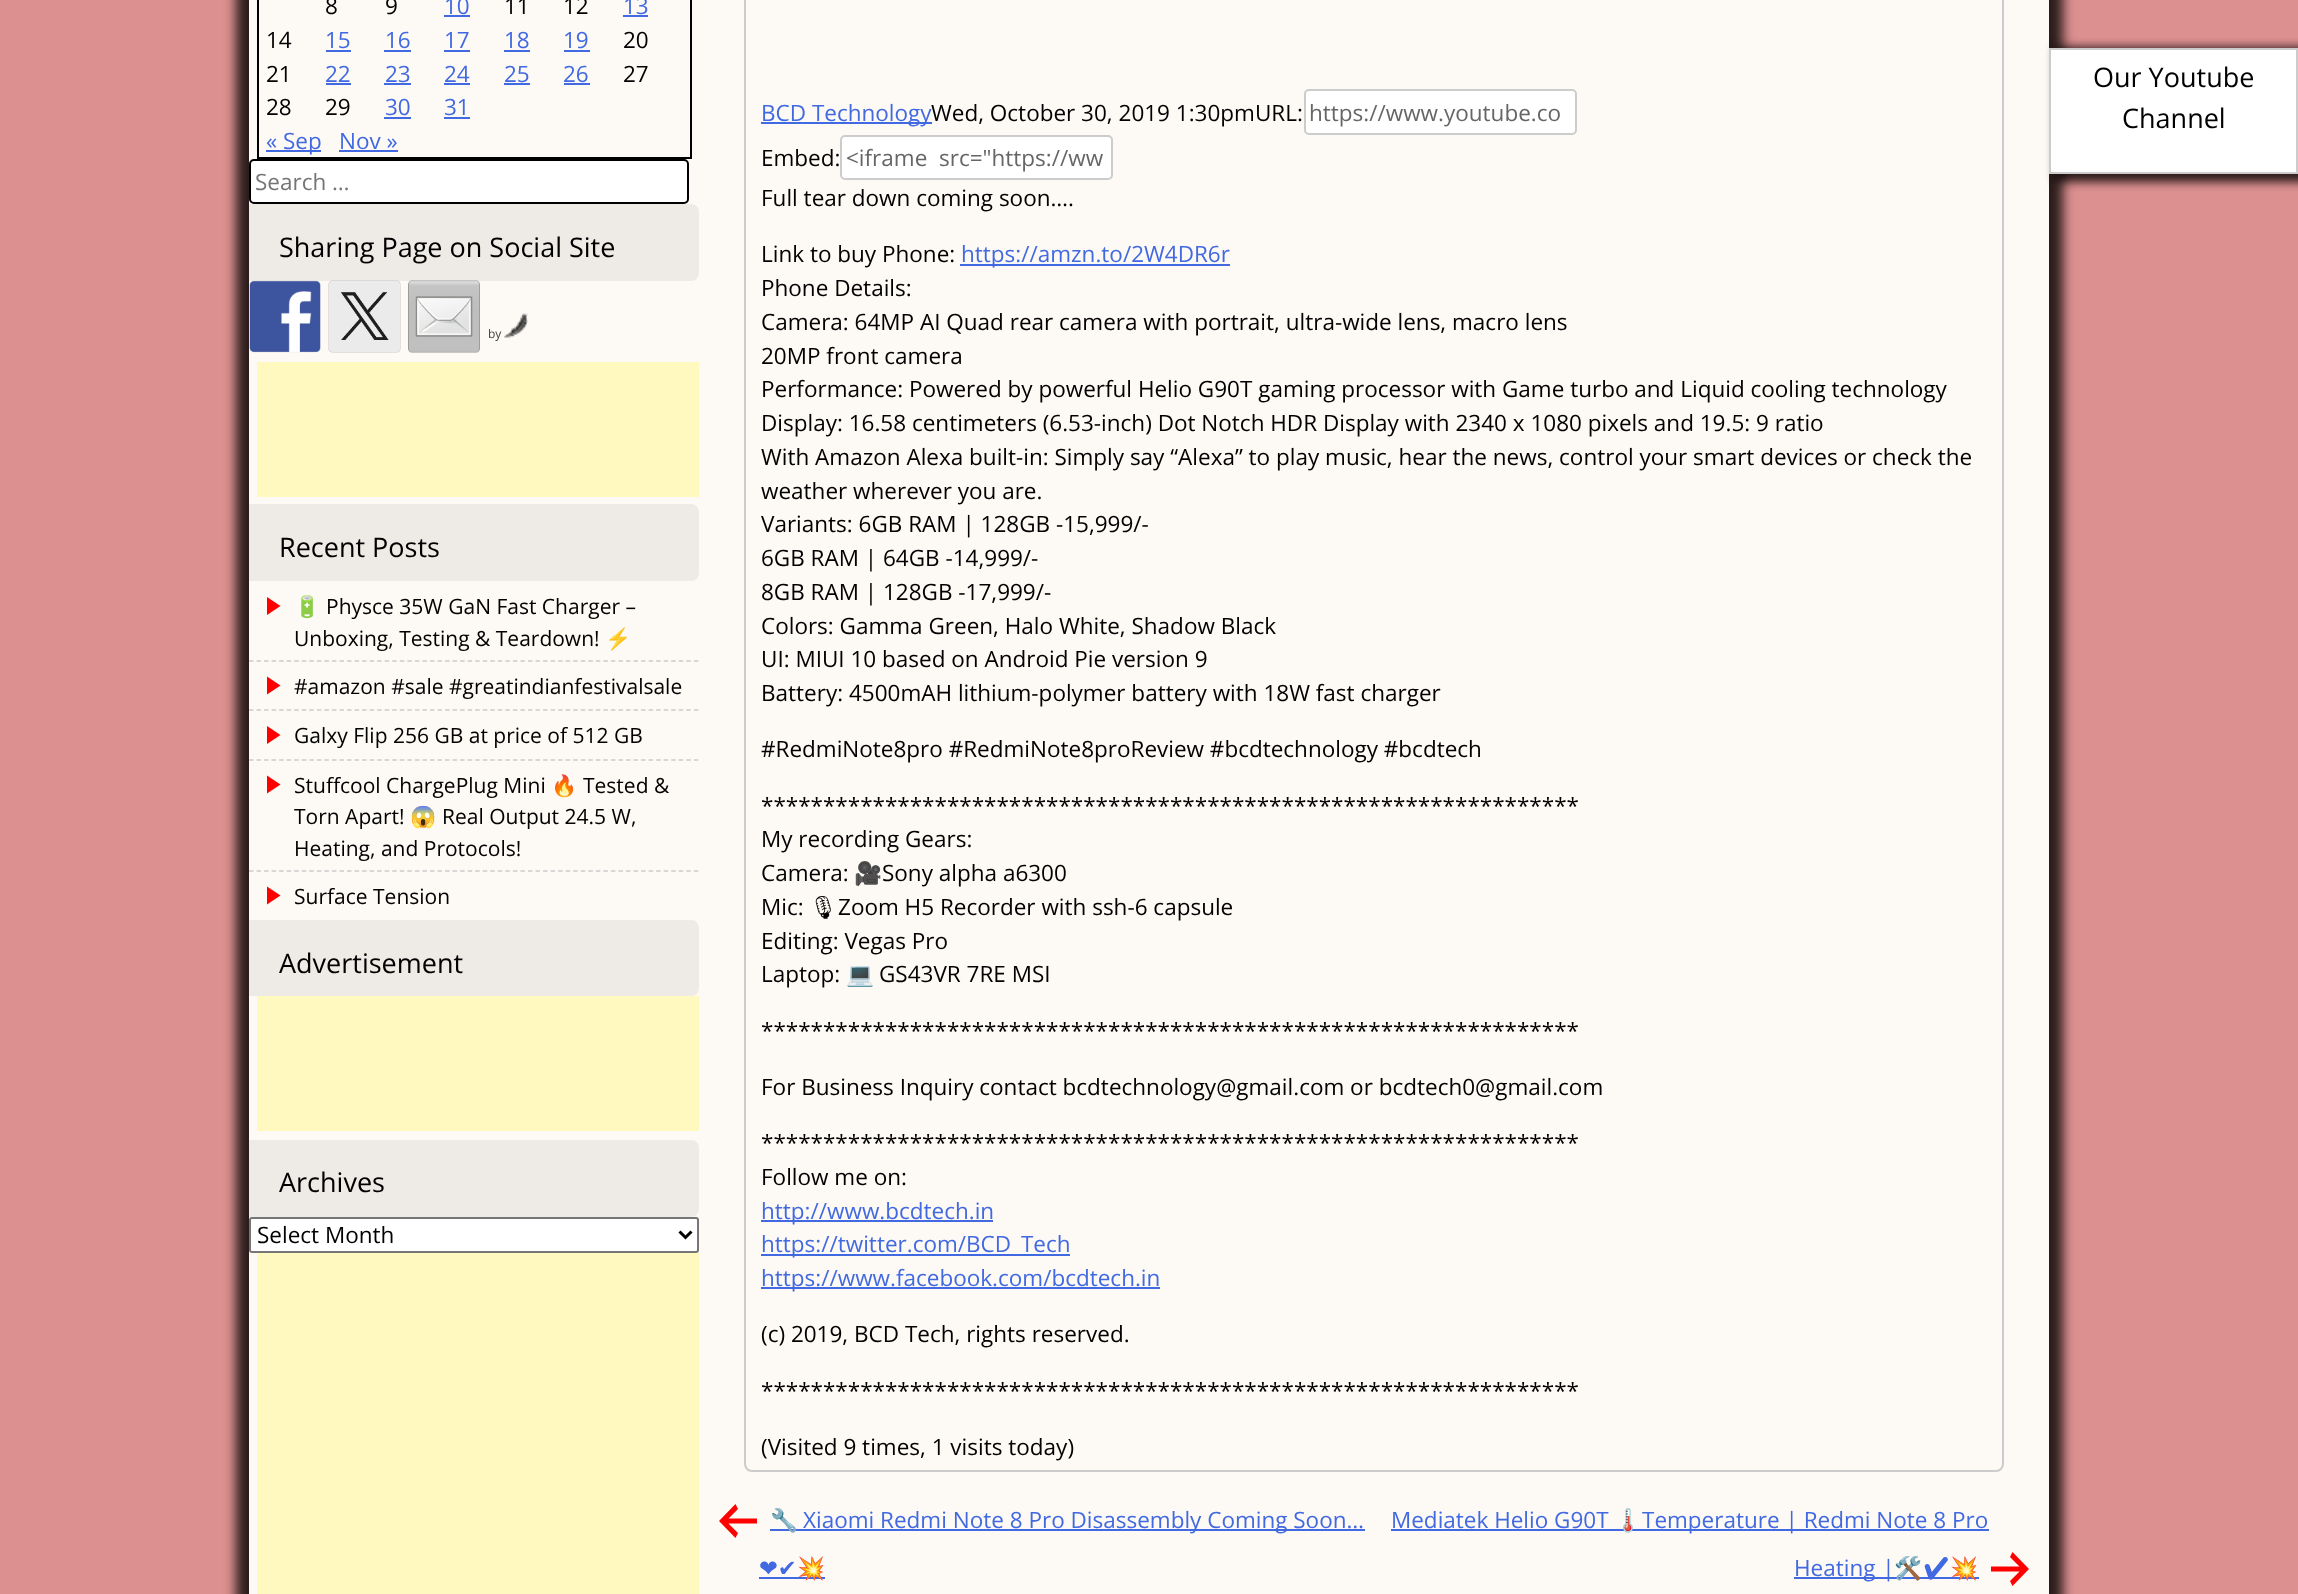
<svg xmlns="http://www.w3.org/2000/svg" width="2298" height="1594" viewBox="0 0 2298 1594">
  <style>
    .t1 { font: 22.5px Open Sans; fill: #000; }
    .t2 { font: 22.5px Open Sans; fill: #4169e1; }
    .t3 { font: 22.5px Open Sans; fill: #757575; }
    .t4 { font: 27px Open Sans; fill: #000; }
    .t5 { font: 12px Open Sans; fill: #444; }
    .t6 { font: 21px Noto Color Emoji; fill: #000; }
    .t7 { font: 21px Open Sans; fill: #000; }
    .t8 { font: 22.5px Open Sans; fill: #666; }
    .t9 { font: 22.5px Noto Color Emoji; fill: #000; }
    .t10 { font: 22.5px Noto Emoji; fill: #000; }
    .t11 { font: 22.5px Noto Color Emoji; fill: #4169e1; }
    .t12 { font: 22.5px DejaVu Sans; fill: #4169e1; }
    .t13 { font: 22.5px Noto Emoji; fill: #4169e1; }
  </style>
  <rect width="100%" height="100%" fill="#dd9090"/>
  <rect x="236" y="-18" width="1803" height="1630" fill="#000000cc" filter="blur(6px)"/>
  <rect x="260" y="-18" width="1803" height="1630" fill="#000000cc" filter="blur(6px)"/>
  <rect x="249" y="0" width="1800" height="1594" fill="#fdf9f4"/>
  <rect x="258" y="-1" width="433" height="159" fill="none" stroke="#000" stroke-width="2"/>
  <text x="325" y="14" class="t1">8</text>
  <text x="385" y="14" class="t1">9</text>
  <text x="444" y="14" class="t2">10</text>
  <rect x="444" y="15" width="26" height="2" fill="#4169e1"/>
  <text x="504" y="14" class="t1">11</text>
  <text x="563" y="14" class="t1">12</text>
  <text x="623" y="14" class="t2">13</text>
  <rect x="623" y="15" width="25" height="2" fill="#4169e1"/>
  <text x="266" y="48" class="t1">14</text>
  <text x="325" y="48" class="t2">15</text>
  <rect x="326" y="50" width="25" height="2" fill="#4169e1"/>
  <text x="385" y="48" class="t2">16</text>
  <rect x="384" y="50" width="27" height="2" fill="#4169e1"/>
  <text x="444" y="48" class="t2">17</text>
  <rect x="444" y="50" width="26" height="2" fill="#4169e1"/>
  <text x="504" y="48" class="t2">18</text>
  <rect x="504" y="50" width="26" height="2" fill="#4169e1"/>
  <text x="563" y="48" class="t2">19</text>
  <rect x="564" y="50" width="26" height="2" fill="#4169e1"/>
  <text x="623" y="48" class="t1">20</text>
  <text x="266" y="82" class="t1">21</text>
  <text x="325" y="82" class="t2">22</text>
  <rect x="326" y="83" width="25" height="2" fill="#4169e1"/>
  <text x="385" y="82" class="t2">23</text>
  <rect x="384" y="83" width="27" height="2" fill="#4169e1"/>
  <text x="444" y="82" class="t2">24</text>
  <rect x="444" y="83" width="26" height="2" fill="#4169e1"/>
  <text x="504" y="82" class="t2">25</text>
  <rect x="504" y="83" width="26" height="2" fill="#4169e1"/>
  <text x="563" y="82" class="t2">26</text>
  <rect x="564" y="83" width="26" height="2" fill="#4169e1"/>
  <text x="623" y="82" class="t1">27</text>
  <text x="266" y="115" class="t1">28</text>
  <text x="325" y="115" class="t1">29</text>
  <text x="385" y="115" class="t2">30</text>
  <rect x="384" y="117" width="27" height="2" fill="#4169e1"/>
  <text x="444" y="115" class="t2">31</text>
  <rect x="444" y="117" width="26" height="2" fill="#4169e1"/>
  <rect x="266" y="150" width="55" height="2" fill="#4169e1"/>
  <text x="266" y="149" class="t2">« Sep</text>
  <text x="339" y="149" class="t2">Nov »</text>
  <rect x="339" y="150" width="59" height="2" fill="#4169e1"/>
  <rect x="250" y="160" width="438" height="43" rx="4" fill="#fff" stroke="#000" stroke-width="2"/>
  <text x="255" y="190" class="t3">Search …</text>
  <path d="M249 204H691C695.5 204 699 207.5 699 212V273C699 277.5 695.5 281 691 281H249Z" fill="#eeeae5"/>
  <text x="279" y="257" class="t4">Sharing Page on Social Site</text>
  <image x="249" y="280" width="72" height="73" href="images/1.png"/>
  <image x="328" y="280" width="73" height="73" href="images/2.png"/>
  <image x="408" y="280" width="72" height="73" href="images/3.png"/>
  <text x="488" y="338" class="t5">by</text>
  <image x="504" y="313" width="24" height="25" href="images/4.png"/>
  <rect x="257" y="362" width="442" height="135" fill="#fff9c0"/>
  <path d="M249 504H691C695.5 504 699 507.5 699 512V573C699 577.5 695.5 581 691 581H249Z" fill="#eeeae5"/>
  <text x="279" y="557" class="t4">Recent Posts</text>
  <path d="M267 597L280.5 606L267 615Z" fill="#f00"/>
  <text x="294" y="614" class="t6">🔋</text>
  <text x="326" y="614" class="t7">Physce 35W GaN Fast Charger –</text>
  <text x="294" y="646" class="t7">Unboxing, Testing &amp; Teardown!</text>
  <text x="605" y="646" class="t6">⚡</text>
  <path d="M249 661H699" fill="none" stroke="#ccc" stroke-width="1.5" stroke-dasharray="4.5 3.04"/>
  <path d="M267 676.5L280.5 685.5L267 694.5Z" fill="#f00"/>
  <text x="294" y="694" class="t7">#amazon #sale #greatindianfestivalsale</text>
  <path d="M249 710H699" fill="none" stroke="#ccc" stroke-width="1.5" stroke-dasharray="4.5 3.04"/>
  <path d="M267 726L280.5 735L267 744Z" fill="#f00"/>
  <text x="294" y="743" class="t7">Galxy Flip 256 GB at price of 512 GB</text>
  <path d="M249 760H699" fill="none" stroke="#ccc" stroke-width="1.5" stroke-dasharray="4.5 3.04"/>
  <path d="M267 775.5L280.5 784.5L267 793.5Z" fill="#f00"/>
  <text x="294" y="793" class="t7">Stuffcool ChargePlug Mini</text>
  <text x="551" y="793" class="t6">🔥</text>
  <text x="583" y="793" class="t7">Tested &amp;</text>
  <text x="294" y="824" class="t7">Torn Apart!</text>
  <text x="410" y="824" class="t6">😱</text>
  <text x="442" y="824" class="t7">Real Output 24.5 W,</text>
  <text x="294" y="856" class="t7">Heating, and Protocols!</text>
  <path d="M249 871H699" fill="none" stroke="#ccc" stroke-width="1.5" stroke-dasharray="4.5 3.04"/>
  <path d="M267 886.5L280.5 895.5L267 904.5Z" fill="#f00"/>
  <text x="294" y="904" class="t7">Surface Tension</text>
  <path d="M249 920H691C695.5 920 699 923.5 699 928V988C699 992.5 695.5 996 691 996H249Z" fill="#eeeae5"/>
  <text x="279" y="973" class="t4">Advertisement</text>
  <rect x="257" y="996" width="442" height="135" fill="#fff9c0"/>
  <path d="M249 1140H691C695.5 1140 699 1143.5 699 1148V1209C699 1213.5 695.5 1217 691 1217H249Z" fill="#eeeae5"/>
  <text x="279" y="1192" class="t4">Archives</text>
  <rect x="250" y="1218" width="448" height="34" rx="2" fill="#fff" stroke="#767676" stroke-width="2"/>
  <path d="M679.5 1231.5L685.5 1237.5L691.5 1231.5" fill="none" stroke="#000" stroke-width="3"/>
  <text x="257" y="1243" class="t1">Select Month</text>
  <rect x="257" y="1253" width="442" height="341" fill="#fff9c0"/>
  <rect x="745" y="-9" width="1258" height="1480" rx="7" fill="none" stroke="#ccc" stroke-width="2"/>
  <rect x="761" y="122" width="171" height="2" fill="#4169e1"/>
  <text x="761" y="121" class="t2">BCD Technology</text>
  <text x="931" y="121" class="t1">Wed, October 30, 2019 1:30pmURL:</text>
  <rect x="1305" y="90" width="271" height="44" rx="4" fill="#fff" stroke="#ccc" stroke-width="2"/>
  <text x="1309" y="121" class="t8">https://www.youtube.co</text>
  <text x="761" y="166" class="t1">Embed:</text>
  <rect x="841" y="136" width="271" height="43" rx="4" fill="#fff" stroke="#ccc" stroke-width="2"/>
  <text x="846" y="166" class="t8" xml:space="preserve">&lt;iframe  src="https://ww</text>
  <text x="761" y="206" class="t1">Full tear down coming soon….</text>
  <text x="761" y="262" class="t1">Link to buy Phone:</text>
  <rect x="960" y="264" width="270" height="2" fill="#4169e1"/>
  <text x="961" y="262" class="t2">https://amzn.to/2W4DR6r</text>
  <text x="761" y="296" class="t1">Phone Details:</text>
  <text x="761" y="330" class="t1">Camera: 64MP AI Quad rear camera with portrait, ultra-wide lens, macro lens</text>
  <text x="761" y="364" class="t1">20MP front camera</text>
  <text x="761" y="397" class="t1">Performance: Powered by powerful Helio G90T gaming processor with Game turbo and Liquid cooling technology</text>
  <text x="761" y="431" class="t1">Display: 16.58 centimeters (6.53-inch) Dot Notch HDR Display with 2340 x 1080 pixels and 19.5: 9 ratio</text>
  <text x="761" y="465" class="t1">With Amazon Alexa built-in: Simply say “Alexa” to play music, hear the news, control your smart devices or check the</text>
  <text x="761" y="499" class="t1">weather wherever you are.</text>
  <text x="761" y="532" class="t1">Variants: 6GB RAM | 128GB -15,999/-</text>
  <text x="761" y="566" class="t1">6GB RAM | 64GB -14,999/-</text>
  <text x="761" y="600" class="t1">8GB RAM | 128GB -17,999/-</text>
  <text x="761" y="634" class="t1">Colors: Gamma Green, Halo White, Shadow Black</text>
  <text x="761" y="667" class="t1">UI: MIUI 10 based on Android Pie version 9</text>
  <text x="761" y="701" class="t1">Battery: 4500mAH lithium-polymer battery with 18W fast charger</text>
  <text x="761" y="757" class="t1">#RedmiNote8pro #RedmiNote8proReview #bcdtechnology #bcdtech</text>
  <text x="761" y="814" class="t1">******************************************************************</text>
  <text x="761" y="847" class="t1">My recording Gears:</text>
  <text x="761" y="881" class="t1">Camera:</text>
  <text x="854" y="881" class="t9">🎥</text>
  <text x="882" y="881" class="t1">Sony alpha a6300</text>
  <text x="761" y="915" class="t1">Mic:</text>
  <text x="809" y="915" class="t10">🎙</text>
  <text x="838" y="915" class="t1">Zoom H5 Recorder with ssh-6 capsule</text>
  <text x="761" y="949" class="t1">Editing: Vegas Pro</text>
  <text x="761" y="982" class="t1">Laptop:</text>
  <text x="846" y="982" class="t9">💻</text>
  <text x="879" y="982" class="t1">GS43VR 7RE MSI</text>
  <text x="761" y="1039" class="t1">******************************************************************</text>
  <text x="761" y="1095" class="t1">For Business Inquiry contact bcdtechnology@gmail.com or bcdtech0@gmail.com</text>
  <text x="761" y="1151" class="t1">******************************************************************</text>
  <text x="761" y="1185" class="t1">Follow me on:</text>
  <rect x="761" y="1220" width="232" height="2" fill="#4169e1"/>
  <text x="761" y="1219" class="t2">http://www.bcdtech.in</text>
  <rect x="761" y="1254" width="309" height="2" fill="#4169e1"/>
  <text x="761" y="1252" class="t2">https://twitter.com/BCD_Tech</text>
  <rect x="761" y="1287" width="399" height="2" fill="#4169e1"/>
  <text x="761" y="1286" class="t2">https://www.facebook.com/bcdtech.in</text>
  <text x="761" y="1342" class="t1">(c) 2019, BCD Tech, rights reserved.</text>
  <text x="761" y="1399" class="t1">******************************************************************</text>
  <text x="761" y="1455" class="t1">(Visited 9 times, 1 visits today)</text>
  <path d="M757 1518.5V1523.5H728.5L738 1533L735.5 1538L719 1521L735.5 1504L738 1509L728.5 1518.5Z" fill="#f00"/>
  <rect x="770" y="1529" width="595" height="2" fill="#4169e1"/>
  <text x="770" y="1528" class="t11">🔧</text>
  <text x="803" y="1528" class="t2">Xiaomi Redmi Note 8 Pro Disassembly Coming Soon…</text>
  <text x="759" y="1576" class="t12">❤✔</text>
  <rect x="759" y="1577" width="66" height="2" fill="#4169e1"/>
  <text x="797" y="1576" class="t11">💥</text>
  <text x="1391" y="1528" class="t2">Mediatek Helio G90T</text>
  <rect x="1391" y="1529" width="598" height="2" fill="#4169e1"/>
  <text x="1614" y="1528" class="t11">🌡</text>
  <text x="1642" y="1528" class="t2">Temperature | Redmi Note 8 Pro</text>
  <rect x="1794" y="1577" width="185" height="2" fill="#4169e1"/>
  <text x="1794" y="1576" word-spacing="1" class="t2">Heating |</text>
  <text x="1894" y="1576" class="t11">🛠</text>
  <text x="1922" y="1576" class="t13">✔</text>
  <text x="1950" y="1576" class="t11">💥</text>
  <path d="M1991 1571.5V1566.5H2019.5L2010 1557L2012.5 1552L2029 1569L2012.5 1586L2010 1581L2019.5 1571.5Z" fill="#f00"/>
  <rect x="2055" y="47" width="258" height="135" fill="#000000cc" filter="blur(5px)"/>
  <rect x="2050" y="49" width="247" height="124" fill="#fff" stroke="#ccc" stroke-width="2"/>
  <text x="2093" y="87" class="t4">Our Youtube</text>
  <text x="2122" y="128" class="t4">Channel</text>
</svg>
